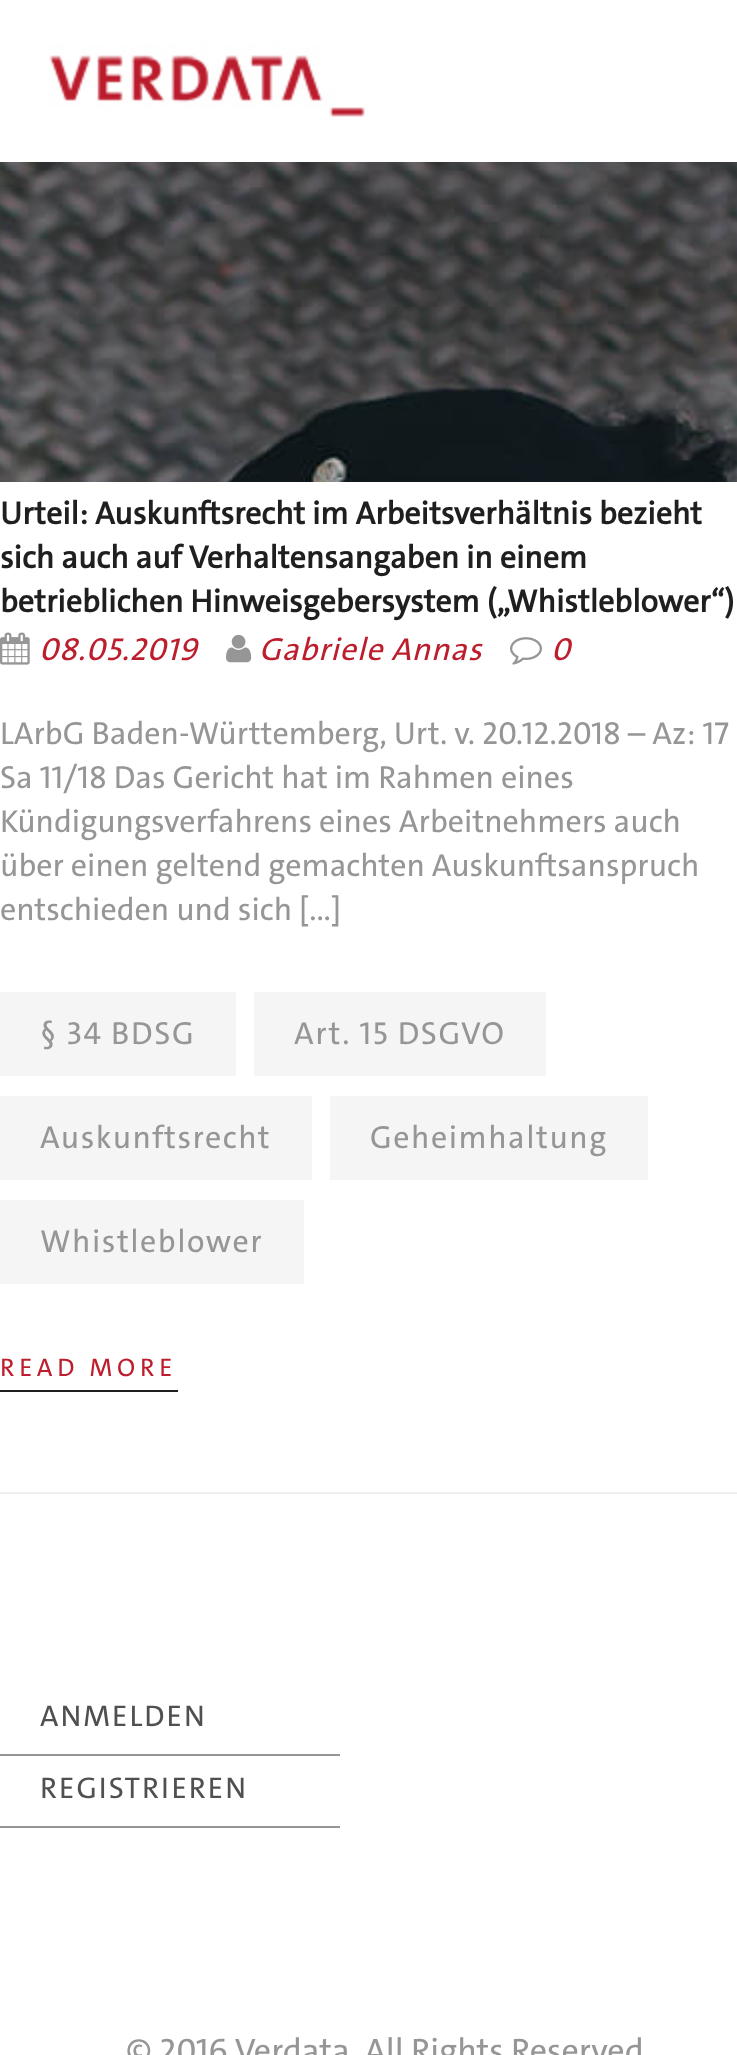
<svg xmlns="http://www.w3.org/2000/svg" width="737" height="2055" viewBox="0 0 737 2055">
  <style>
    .t1 { font: bold 32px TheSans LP; fill: #1f1f1f; }
    .t2 { font: italic 32px TheSans LP; letter-spacing: 0.9px; fill: #bc1e2d; }
    .t3 { font: 32px TheSans LP; fill: #969696; }
    .t4 { font: 32px TheSans LP; letter-spacing: 1.5px; fill: #969696; }
    .t5 { font: 25.5px TheSans LP; letter-spacing: 4.75px; fill: #bc1e2d; }
    .t6 { font: 30px TheSans LP; letter-spacing: 2px; fill: #505050; }
    .t7 { font: 34.1px TheSans LP; fill: #969696; }
  </style>
  <rect width="100%" height="100%" fill="#fff"/>
  <image x="27" y="18" width="338" height="99" href="images/1.png"/>
  <image x="0" y="162" width="737" height="320" href="images/2.png"/>
  <text x="0" y="524" class="t1">Urteil: Auskunftsrecht im Arbeitsverhältnis bezieht</text>
  <text x="0" y="568" class="t1">sich auch auf Verhaltensangaben in einem</text>
  <text x="0" y="612" class="t1">betrieblichen Hinweisgebersystem („Whistleblower“)</text>
  <image x="0" y="632" width="30" height="33" href="images/3.png"/>
  <text x="39" y="660" class="t2">08.05.2019</text>
  <image x="226" y="634" width="26" height="29" href="images/4.png"/>
  <text x="259" y="660" class="t2">Gabriele Annas</text>
  <image x="510" y="637" width="32" height="28" href="images/5.png"/>
  <text x="551" y="660" class="t2">0</text>
  <text x="0" y="744" class="t3">LArbG Baden-Württemberg, Urt. v. 20.12.2018 – Az: 17</text>
  <text x="0" y="788" class="t3">Sa 11/18 Das Gericht hat im Rahmen eines</text>
  <text x="0" y="832" class="t3">Kündigungsverfahrens eines Arbeitnehmers auch</text>
  <text x="0" y="876" class="t3">über einen geltend gemachten Auskunftsanspruch</text>
  <text x="0" y="920" class="t3">entschieden und sich [...]</text>
  <rect x="0" y="992" width="236" height="84" fill="#f5f5f5"/>
  <text x="40" y="1044" class="t4">§ 34 BDSG</text>
  <rect x="254" y="992" width="292" height="84" fill="#f5f5f5"/>
  <text x="294" y="1044" class="t4">Art. 15 DSGVO</text>
  <rect x="0" y="1096" width="312" height="84" fill="#f5f5f5"/>
  <text x="40" y="1148" class="t4">Auskunftsrecht</text>
  <rect x="330" y="1096" width="318" height="84" fill="#f5f5f5"/>
  <text x="370" y="1148" class="t4">Geheimhaltung</text>
  <rect x="0" y="1200" width="304" height="84" fill="#f5f5f5"/>
  <text x="40" y="1252" class="t4">Whistleblower</text>
  <rect x="0" y="1390" width="178" height="2" fill="#1f1f1f"/>
  <text x="0" y="1376" class="t5">READ MORE</text>
  <rect x="0" y="1492" width="737" height="2" fill="#eee"/>
  <rect x="0" y="1754" width="340" height="2" fill="#969696"/>
  <text x="40" y="1726" class="t6">ANMELDEN</text>
  <rect x="0" y="1826" width="340" height="2" fill="#969696"/>
  <text x="40" y="1798" class="t6">REGISTRIEREN</text>
  <text x="126" y="2062" class="t7">© 2016 Verdata. All Rights Reserved</text>
</svg>
